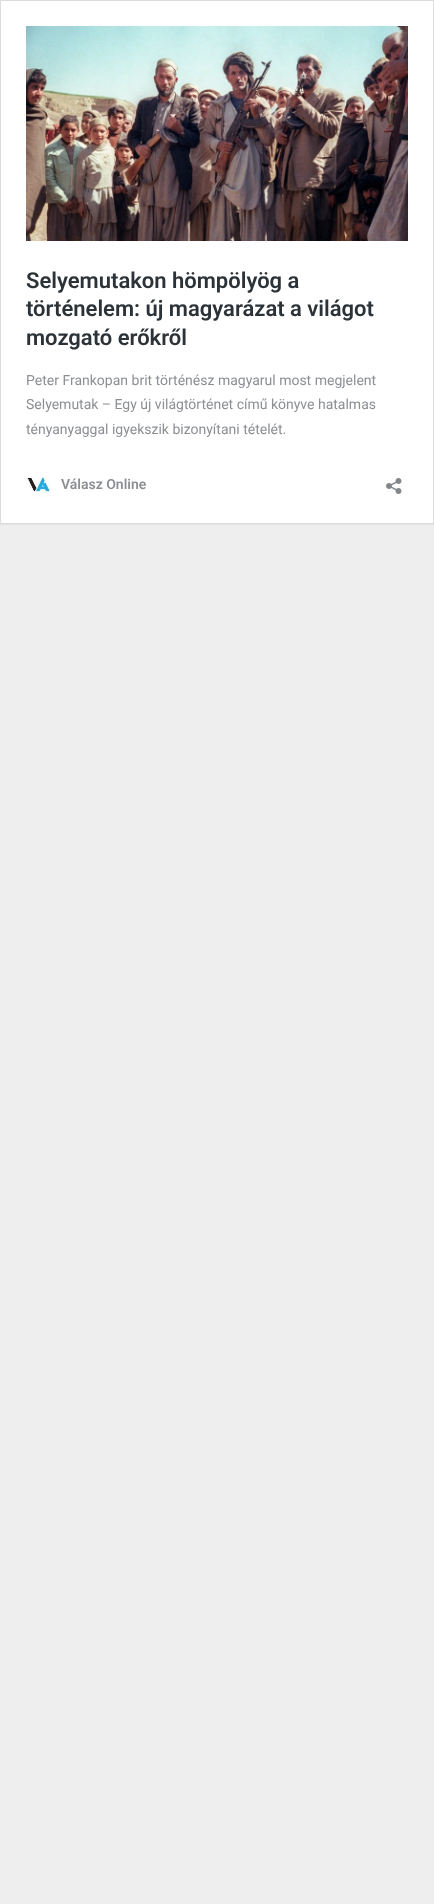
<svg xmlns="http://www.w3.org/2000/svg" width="434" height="1904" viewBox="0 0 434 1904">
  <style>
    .t1 { font: 600 22px Roboto; fill: #2c3338; }
    .t2 { font: 14px Roboto; fill: #8c8f94; }
    .t3 { font: 600 14px Roboto; fill: #8c8f94; }
  </style>
  <rect width="100%" height="100%" fill="#eee"/>
  <rect x="0" y="1" width="434" height="524" fill="#0000000d" filter="blur(0.5px)"/>
  <rect x="0.5" y="0.5" width="433" height="523" fill="#fff" stroke="#dcdcde"/>
  <image x="26" y="26" width="382" height="215" href="images/1.png"/>
  <text x="26" y="288" class="t1">Selyemutakon hömpölyög a</text>
  <text x="26" y="316" class="t1">történelem: új magyarázat a világot</text>
  <text x="26" y="345" class="t1">mozgató erőkről</text>
  <text x="26" y="385" class="t2">Peter Frankopan brit történész magyarul most megjelent</text>
  <text x="26" y="409" class="t2">Selyemutak – Egy új világtörténet című könyve hatalmas</text>
  <text x="26" y="434" class="t2">tényanyaggal igyekszik bizonyítani tételét.</text>
  <image x="26" y="472" width="25" height="26" href="images/2.png"/>
  <text x="61" y="489" class="t3">Válasz Online</text>
  <image x="386" y="478" width="16" height="16" href="images/3.png"/>
</svg>
